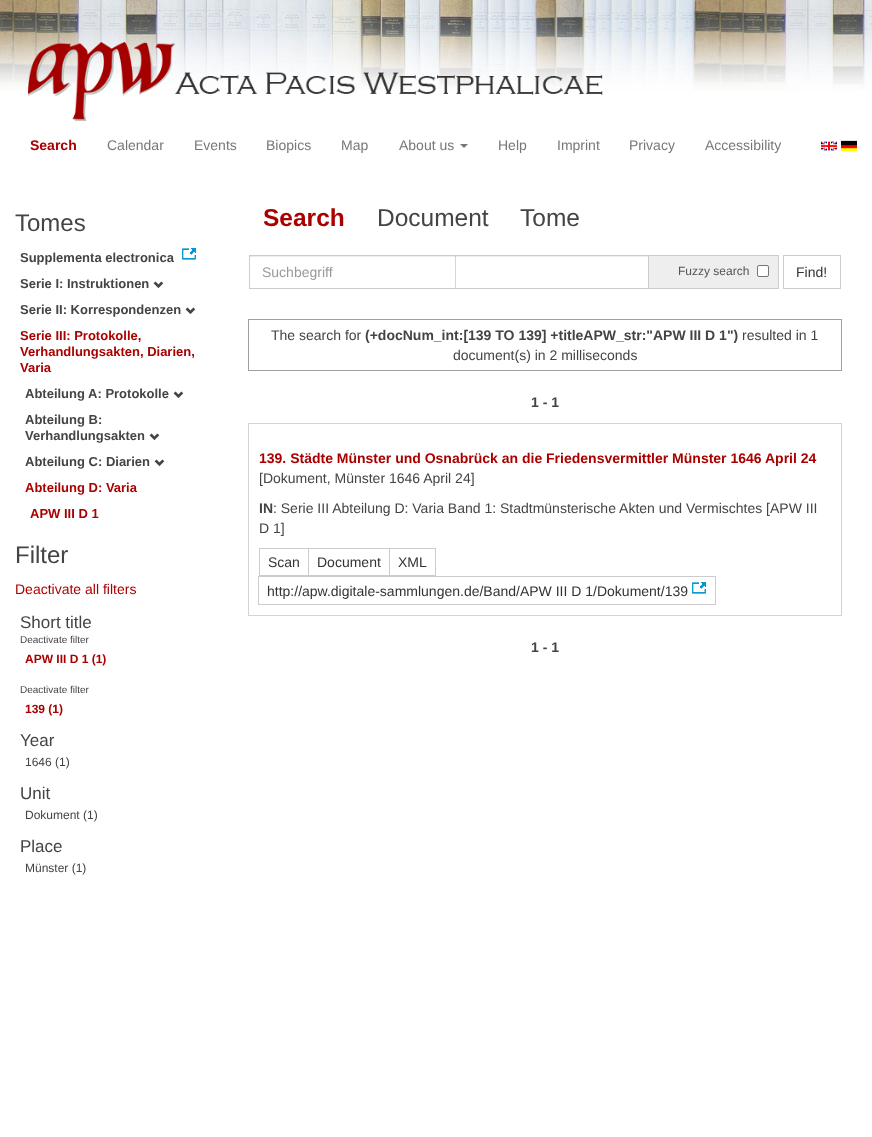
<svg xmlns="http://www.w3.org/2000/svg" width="872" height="1137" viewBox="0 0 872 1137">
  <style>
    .t1 { font: bold 14px Liberation Sans; fill: #a00; }
    .t2 { font: 14px Liberation Sans; fill: #777; }
    .t3 { font: 24px Liberation Sans; fill: #444; }
    .t4 { font: bold 13px Liberation Sans; fill: #444; }
    .t5 { font: bold 13px Liberation Sans; fill: #a00; }
    .t6 { font: 14px Liberation Sans; fill: #a00; }
    .t7 { font: 17px Liberation Sans; fill: #444; }
    .t8 { font: 10px Liberation Sans; fill: #444; }
    .t9 { font: bold 12px Liberation Sans; fill: #a00; }
    .t10 { font: 12px Liberation Sans; fill: #444; }
    .t11 { font: bold 24.5px Liberation Sans; fill: #a00; }
    .t12 { font: 24.5px Liberation Sans; fill: #444; }
    .t13 { font: 14px Liberation Sans; fill: #999; }
    .t14 { font: 12px Liberation Sans; fill: #555; }
    .t15 { font: 14px Liberation Sans; fill: #333; }
    .t16 { font: 14px Liberation Sans; fill: #444; }
    .t17 { font: bold 14px Liberation Sans; fill: #444; }
  </style>
  <rect width="100%" height="100%" fill="#fff"/>
  <image x="0" y="0" width="872" height="91" href="images/1.png"/>
  <image x="28" y="42" width="575" height="79" href="images/2.png"/>
  <text x="30" y="150" class="t1">Search</text>
  <text x="107" y="150" class="t2">Calendar</text>
  <text x="194" y="150" class="t2">Events</text>
  <text x="266" y="150" class="t2">Biopics</text>
  <text x="341" y="150" class="t2">Map</text>
  <text x="399" y="150" class="t2">About us</text>
  <path d="M460 144H468L464 148Z" fill="#777"/>
  <text x="498" y="150" class="t2">Help</text>
  <text x="557" y="150" class="t2">Imprint</text>
  <text x="629" y="150" class="t2">Privacy</text>
  <text x="705" y="150" class="t2">Accessibility</text>
  <image x="821" y="141" width="16" height="10" href="images/3.png"/>
  <image x="841" y="140" width="16" height="12" href="images/4.png"/>
  <text x="15" y="231" class="t3">Tomes</text>
  <text x="20" y="262" class="t4">Supplementa electronica</text>
  <image x="182" y="248" width="14" height="12" href="images/5.png"/>
  <text x="20" y="288" class="t4">Serie I: Instruktionen</text>
  <image x="153" y="281" width="11" height="8" href="images/6.png"/>
  <text x="20" y="314" class="t4">Serie II: Korrespondenzen</text>
  <image x="185" y="307" width="11" height="8" href="images/6.png"/>
  <text x="20" y="340" class="t5">Serie III: Protokolle,</text>
  <text x="20" y="356" class="t5">Verhandlungsakten, Diarien,</text>
  <text x="20" y="372" class="t5">Varia</text>
  <text x="25" y="398" class="t4">Abteilung A: Protokolle</text>
  <image x="173" y="391" width="11" height="8" href="images/6.png"/>
  <text x="25" y="424" class="t4">Abteilung B:</text>
  <text x="25" y="440" class="t4">Verhandlungsakten</text>
  <image x="149" y="433" width="11" height="8" href="images/6.png"/>
  <text x="25" y="466" class="t4">Abteilung C: Diarien</text>
  <image x="154" y="459" width="11" height="8" href="images/6.png"/>
  <text x="25" y="492" class="t5">Abteilung D: Varia</text>
  <text x="30" y="518" class="t5">APW III D 1</text>
  <text x="15" y="563" class="t3">Filter</text>
  <text x="15" y="594" class="t6">Deactivate all filters</text>
  <text x="20" y="628" class="t7">Short title</text>
  <text x="20" y="643" class="t8">Deactivate filter</text>
  <text x="25" y="663" class="t9">APW III D 1 (1)</text>
  <text x="20" y="693" class="t8">Deactivate filter</text>
  <text x="25" y="713" class="t9">139 (1)</text>
  <text x="20" y="746" class="t7">Year</text>
  <text x="25" y="766" class="t10">1646 (1)</text>
  <text x="20" y="799" class="t7">Unit</text>
  <text x="25" y="819" class="t10">Dokument (1)</text>
  <text x="20" y="852" class="t7">Place</text>
  <text x="25" y="872" class="t10">Münster (1)</text>
  <text x="263" y="226" class="t11">Search</text>
  <text x="377" y="226" class="t12">Document</text>
  <text x="520" y="226" class="t12">Tome</text>
  <rect x="249.5" y="255.5" width="206" height="33" rx="1.5" fill="none" stroke="#d6d6d6"/>
  <rect x="250" y="256" width="398" height="1" fill="#00000012"/>
  <rect x="249.5" y="255.5" width="399" height="33" fill="none" stroke="#ccc"/>
  <text x="262" y="277" class="t13">Suchbegriff</text>
  <rect x="649" y="256" width="129" height="32" fill="#eee"/>
  <rect x="649" y="255" width="130" height="1" fill="#ccc"/>
  <rect x="778" y="255" width="1" height="34" fill="#ccc"/>
  <rect x="649" y="288" width="130" height="1" fill="#ccc"/>
  <text x="678" y="275" class="t14">Fuzzy search</text>
  <rect x="757.5" y="265.5" width="11" height="11" rx="1.5" fill="#fff" stroke="#767676"/>
  <rect x="783.5" y="255.5" width="57" height="33" fill="none" stroke="#ccc"/>
  <text x="796" y="277" class="t15">Find!</text>
  <rect x="248.5" y="319.5" width="593" height="51" fill="none" stroke="#a0a0a0"/>
  <text x="271" y="340" class="t16">The search for</text>
  <text x="365" y="340" class="t17">(+docNum_int:[139 TO 139] +titleAPW_str:"APW III D 1")</text>
  <text x="742" y="340" class="t16">resulted in 1</text>
  <text x="453" y="360" class="t16">document(s) in 2 milliseconds</text>
  <text x="531" y="407" class="t17">1 - 1</text>
  <rect x="248.5" y="423.5" width="593" height="192" fill="none" stroke="#d3d3d3"/>
  <text x="259" y="463" class="t1">139. Städte Münster und Osnabrück an die Friedensvermittler Münster 1646 April 24</text>
  <text x="259" y="483" class="t16">[Dokument, Münster 1646 April 24]</text>
  <text x="259" y="513" class="t17">IN</text>
  <text x="273" y="513" class="t16">: Serie III Abteilung D: Varia Band 1: Stadtmünsterische Akten und Vermischtes [APW III</text>
  <text x="259" y="533" class="t16">D 1]</text>
  <rect x="259.5" y="548.5" width="49" height="27" fill="none" stroke="#ccc"/>
  <text x="268" y="567" class="t15">Scan</text>
  <rect x="308.5" y="548.5" width="81" height="27" fill="none" stroke="#ccc"/>
  <text x="317" y="567" class="t15">Document</text>
  <rect x="389.5" y="548.5" width="46" height="27" fill="none" stroke="#ccc"/>
  <text x="398" y="567" class="t15">XML</text>
  <rect x="258.5" y="576.5" width="457" height="28" fill="none" stroke="#ccc"/>
  <text x="267" y="596" class="t15">http://apw.digitale-sammlungen.de/Band/APW III D 1/Dokument/139</text>
  <image x="692" y="582" width="14" height="12" href="images/5.png"/>
  <text x="531" y="652" class="t17">1 - 1</text>
</svg>
